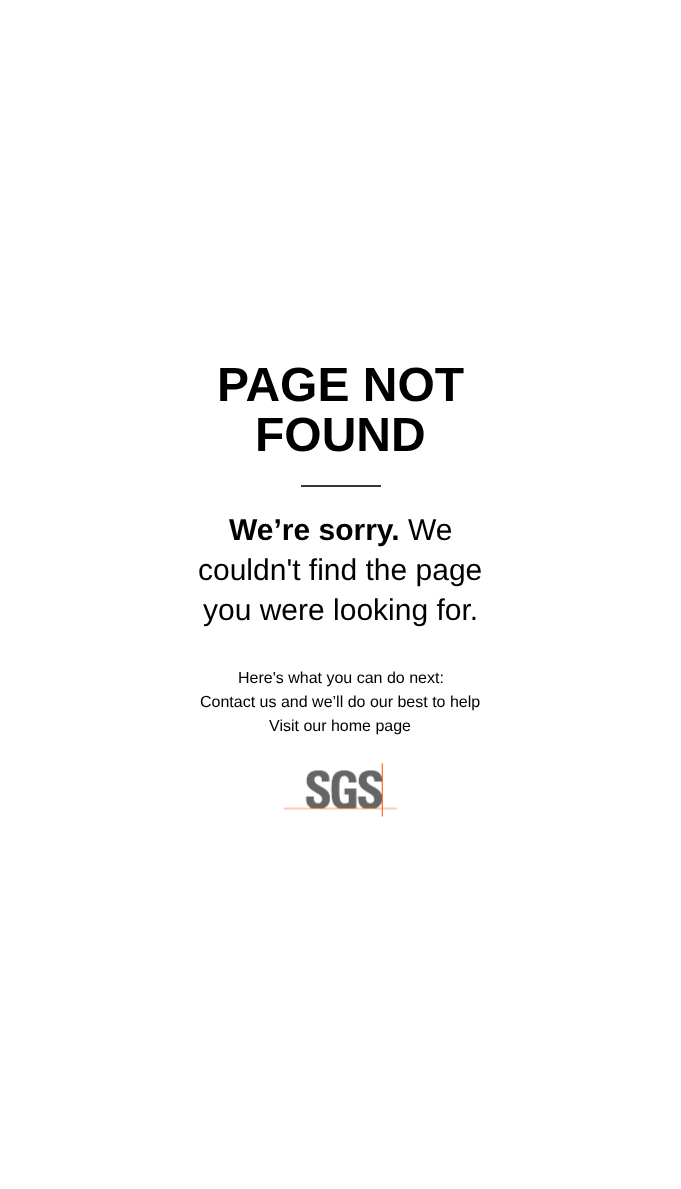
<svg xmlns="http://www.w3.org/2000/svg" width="681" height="1189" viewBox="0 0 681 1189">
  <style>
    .t1 { font: bold 48px Liberation Sans; fill: #000; }
    .t2 { font: bold 30px Liberation Sans; fill: #000; }
    .t3 { font: 30px Liberation Sans; fill: #000; }
    .t4 { font: 16px Liberation Sans; fill: #000; }
  </style>
  <rect width="100%" height="100%" fill="#fff"/>
  <text x="217" y="401" class="t1">PAGE NOT</text>
  <text x="255" y="451" class="t1">FOUND</text>
  <rect x="301" y="485" width="80" height="2" fill="#363636"/>
  <text x="229" y="540" class="t2">We’re sorry.</text>
  <text x="408" y="540" class="t3">We</text>
  <text x="198" y="580" class="t3">couldn't find the page</text>
  <text x="203" y="620" class="t3">you were looking for.</text>
  <text x="238" y="683" class="t4">Here's what you can do next:</text>
  <text x="200" y="707" class="t4">Contact us and we’ll do our best to help</text>
  <text x="269" y="731" class="t4">Visit our home page</text>
  <image x="283" y="762" width="114" height="56" href="images/1.png"/>
</svg>
